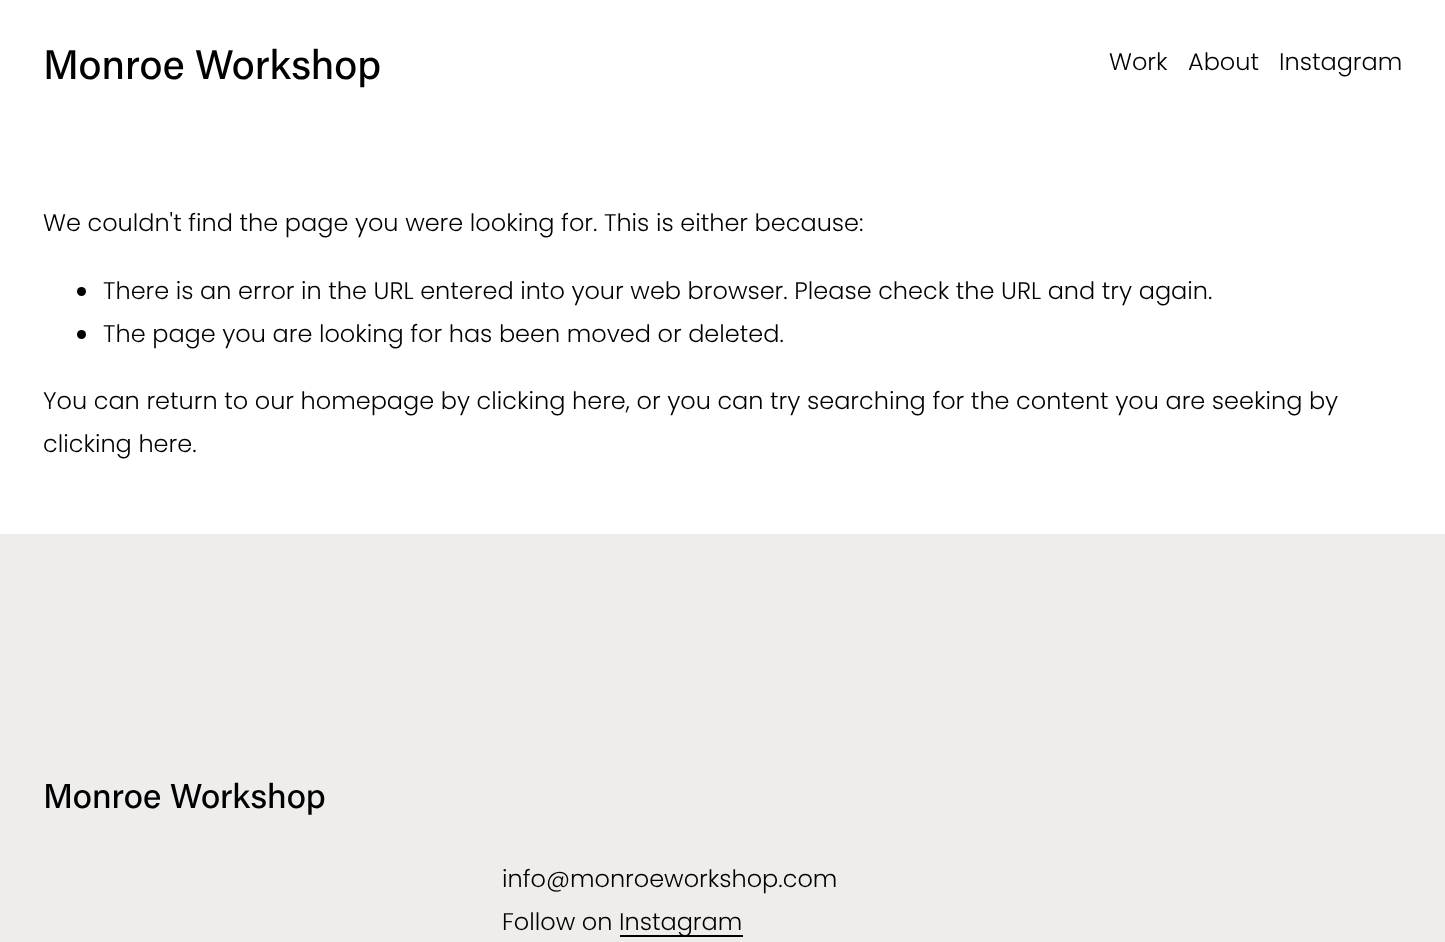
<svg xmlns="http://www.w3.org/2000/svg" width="1445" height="942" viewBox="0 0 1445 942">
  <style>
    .t1 { font: 500 41.25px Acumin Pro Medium; fill: #000; }
    .t2 { font: 300 24px Poppins; fill: #000; }
    .t3 { font: 500 34.5px Acumin Pro Medium; fill: #000; }
  </style>
  <rect width="100%" height="100%" fill="#fff"/>
  <text x="43" y="79" class="t1">Monroe Workshop</text>
  <text x="1109" y="70" class="t2">Work</text>
  <text x="1188" y="70" class="t2">About</text>
  <text x="1279" y="70" class="t2">Instagram</text>
  <text x="43" y="231" class="t2">We couldn't find the page you were looking for. This is either because:</text>
  <circle cx="81.5" cy="291.5" r="4.5" fill="#000"/>
  <text x="103" y="299" class="t2">There is an error in the URL entered into your web browser. Please check the URL and try again.</text>
  <circle cx="81.5" cy="334.5" r="4.5" fill="#000"/>
  <text x="103" y="342" class="t2">The page you are looking for has been moved or deleted.</text>
  <text x="43" y="409" class="t2">You can return to our homepage by clicking here, or you can try searching for the content you are seeking by</text>
  <text x="43" y="452" class="t2">clicking here.</text>
  <rect x="0" y="534" width="1445" height="408" fill="#eeedeb"/>
  <text x="43" y="808" class="t3">Monroe Workshop</text>
  <text x="502" y="887" class="t2">info@monroeworkshop.com</text>
  <text x="502" y="930" class="t2">Follow on</text>
  <rect x="620" y="935" width="123" height="2" fill="#000"/>
  <text x="619" y="930" class="t2">Instagram</text>
</svg>
